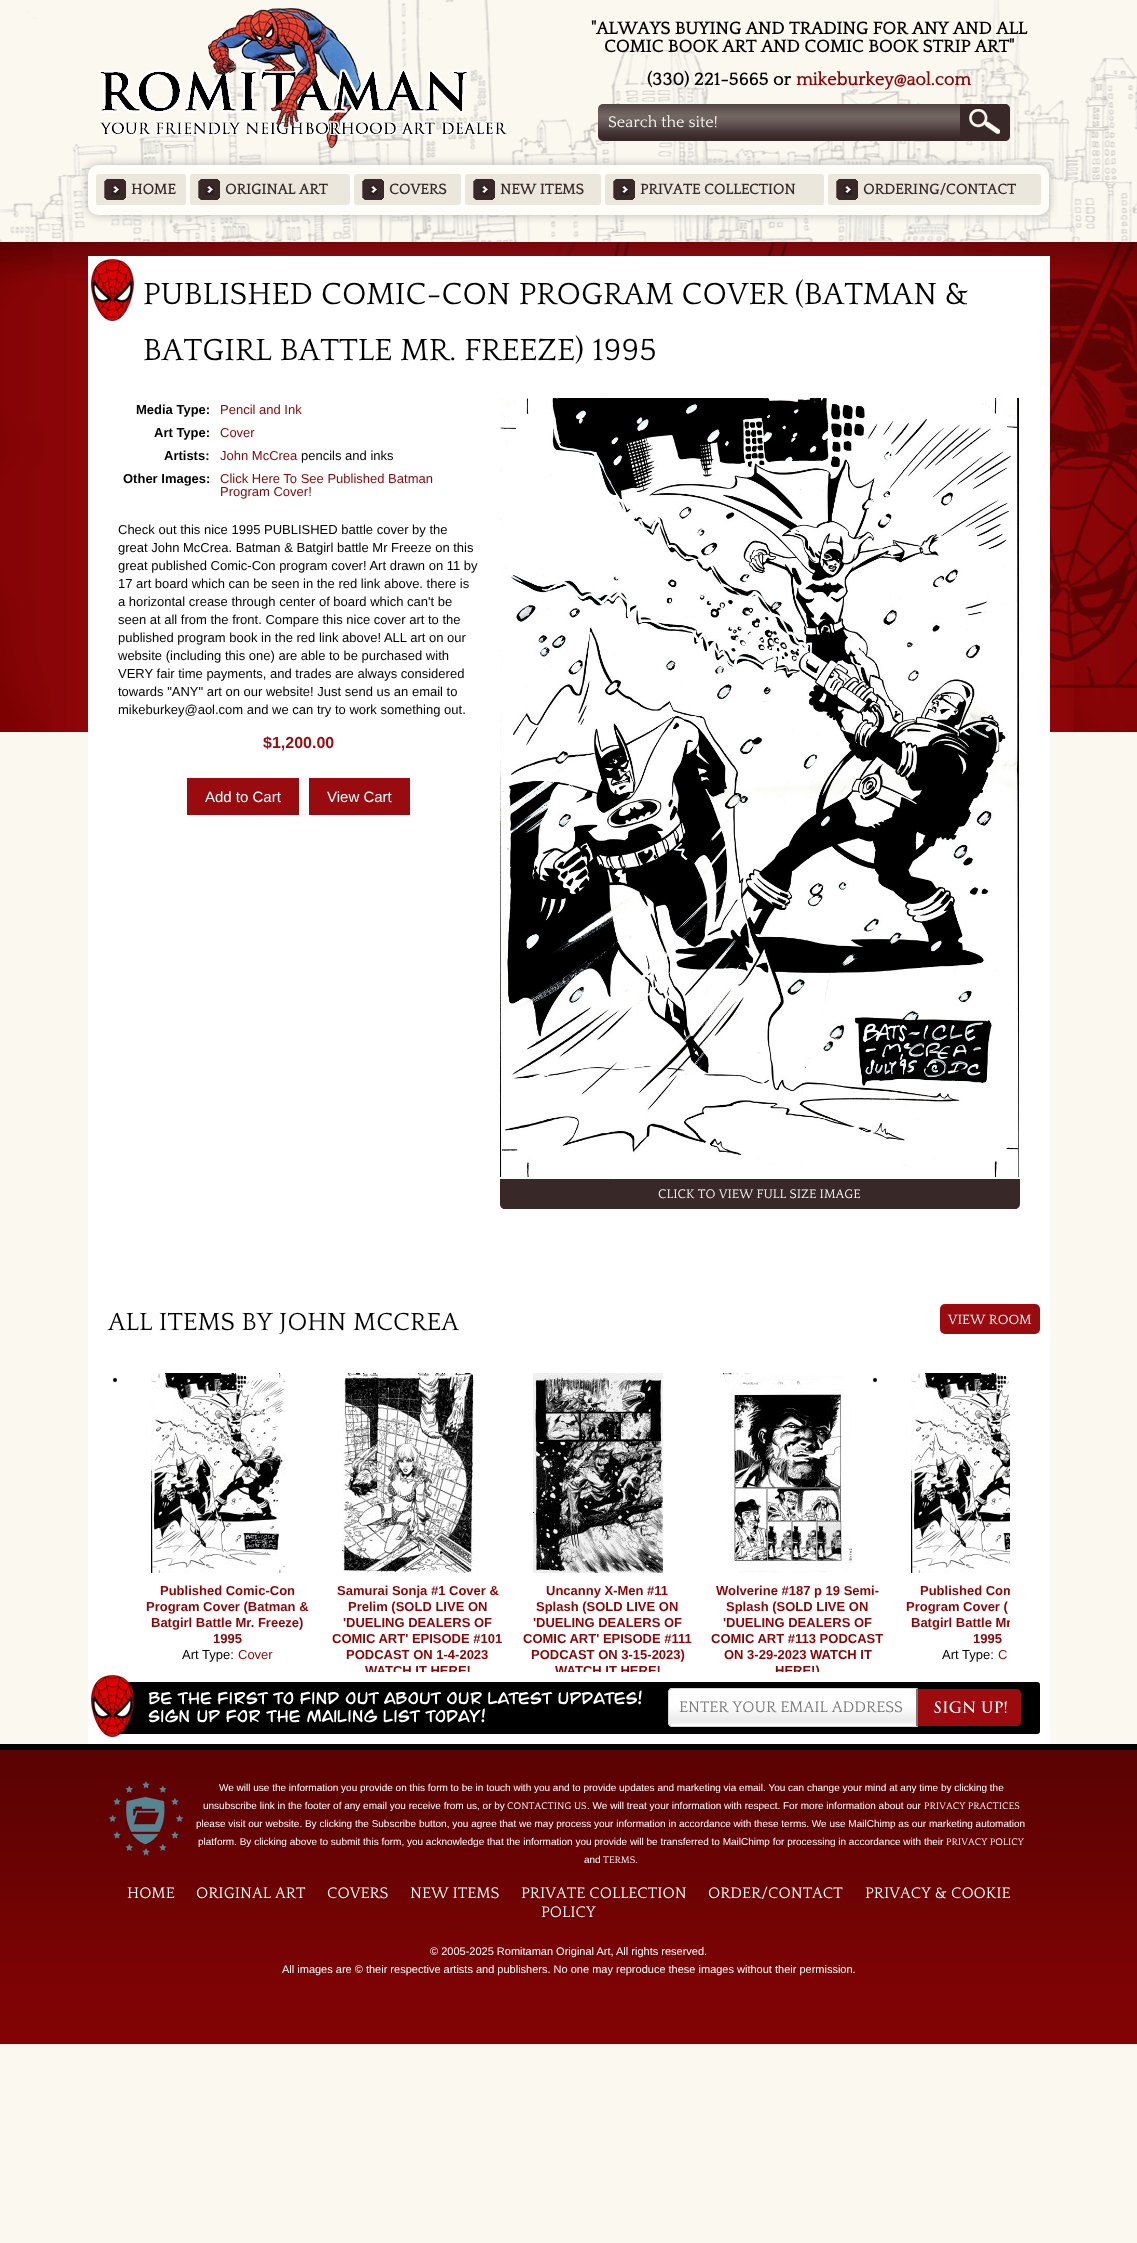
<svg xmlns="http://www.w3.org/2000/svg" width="1137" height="2243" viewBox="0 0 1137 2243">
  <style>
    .t1 { font: bold 18px Quattrocento; fill: #000; }
    .t2 { font: bold 18px Quattrocento; fill: #890506; }
    .t3 { font: 16px Quattrocento; fill: #fefdf8; }
    .t4 { font: bold 15px Quattrocento; fill: #382828; }
    .t5 { font: 32px Quattrocento; fill: #000; }
    .t6 { font: bold 13px Liberation Sans; fill: #000; }
    .t7 { font: 13px Liberation Sans; fill: #890506; }
    .t8 { font: 13px Liberation Sans; fill: #000; }
    .t9 { font: bold 16px Liberation Sans; fill: #9e090e; }
    .t10 { font: 15px Liberation Sans; fill: #fff; }
    .t11 { font: 13px Quattrocento; fill: #fff; }
    .t12 { font: 26px Quattrocento; fill: #000; }
    .t13 { font: 14px Quattrocento; fill: #fff; }
    .t14 { font: bold 13px Liberation Sans; fill: #890506; }
    .t15 { font: 16px Quattrocento; fill: #757575; }
    .t16 { font: 10px Liberation Sans; fill: #fff; }
    .t17 { font: 10px Quattrocento; fill: #fff; }
    .t18 { font: 16px Quattrocento; fill: #fff; }
    .t19 { font: 11px Liberation Sans; fill: #fff; }
  </style>
  <defs>
    <clipPath id="clip1"><rect x="88" y="1360" width="922" height="320"/></clipPath>
  </defs>
  <rect width="100%" height="100%" fill="#fbf8ef"/>
  <image x="0" y="0" width="1137" height="732" href="images/1.png"/>
  <image x="98" y="8" width="410" height="141" href="images/2.png"/>
  <text x="591" y="34" class="t1">"ALWAYS BUYING AND TRADING FOR ANY AND ALL</text>
  <text x="604" y="52" class="t1">COMIC BOOK ART AND COMIC BOOK STRIP ART"</text>
  <text x="647" y="85" class="t1">(330) 221-5665 or</text>
  <text x="796" y="85" class="t2">mikeburkey@aol.com</text>
  <image x="598" y="104" width="362" height="37" href="images/3.png"/>
  <text x="608" y="127" class="t3">Search the site!</text>
  <path d="M960 104H1005C1008 104 1010 106 1010 109V136C1010 139 1008 141 1005 141H960Z" fill="#382828"/>
  <image x="969" y="109" width="31" height="25" href="images/4.png"/>
  <rect x="88" y="165" width="961" height="50" rx="10" fill="#b7b7b7" filter="blur(5px)"/>
  <rect x="88" y="165" width="961" height="50" rx="10" fill="#fefdf8"/>
  <rect x="96" y="174" width="90" height="31" rx="3" fill="#ece7dd"/>
  <image x="104" y="179" width="22" height="21" href="images/5.png"/>
  <text x="131" y="194" class="t4">HOME</text>
  <rect x="190" y="174" width="160" height="31" rx="3" fill="#ece7dd"/>
  <image x="198" y="179" width="22" height="21" href="images/6.png"/>
  <text x="225" y="194" class="t4">ORIGINAL ART</text>
  <rect x="354" y="174" width="107" height="31" rx="3" fill="#ece7dd"/>
  <image x="362" y="179" width="22" height="21" href="images/5.png"/>
  <text x="389" y="194" class="t4">COVERS</text>
  <rect x="465" y="174" width="136" height="31" rx="3" fill="#ece7dd"/>
  <image x="473" y="179" width="22" height="21" href="images/6.png"/>
  <text x="500" y="194" class="t4">NEW ITEMS</text>
  <rect x="605" y="174" width="219" height="31" rx="3" fill="#ece7dd"/>
  <image x="613" y="179" width="22" height="21" href="images/5.png"/>
  <text x="640" y="194" class="t4">PRIVATE COLLECTION</text>
  <rect x="828" y="174" width="213" height="31" rx="3" fill="#ece7dd"/>
  <image x="836" y="179" width="22" height="21" href="images/5.png"/>
  <text x="863" y="194" class="t4">ORDERING/CONTACT</text>
  <rect x="88" y="256" width="962" height="1488" fill="#fff"/>
  <image x="91" y="259" width="43" height="62" href="images/7.png"/>
  <text x="143" y="304" class="t5">PUBLISHED COMIC-CON PROGRAM COVER (BATMAN &amp;</text>
  <text x="143" y="360" class="t5">BATGIRL BATTLE MR. FREEZE) 1995</text>
  <text x="136" y="414" class="t6">Media Type:</text>
  <text x="220" y="414" class="t7">Pencil and Ink</text>
  <text x="154" y="437" class="t6">Art Type:</text>
  <text x="220" y="437" class="t7">Cover</text>
  <text x="164" y="460" class="t6">Artists:</text>
  <text x="220" y="460" class="t7">John McCrea</text>
  <text x="301" y="460" class="t8">pencils and inks</text>
  <text x="123" y="483" class="t6">Other Images:</text>
  <text x="220" y="483" class="t7">Click Here To See Published Batman</text>
  <text x="220" y="496" class="t7">Program Cover!</text>
  <text x="118" y="534" class="t8">Check out this nice 1995 PUBLISHED battle cover by the</text>
  <text x="118" y="552" class="t8">great John McCrea. Batman &amp; Batgirl battle Mr Freeze on this</text>
  <text x="118" y="570" class="t8">great published Comic-Con program cover! Art drawn on 11 by</text>
  <text x="118" y="588" class="t8">17 art board which can be seen in the red link above. there is</text>
  <text x="118" y="606" class="t8">a horizontal crease through center of board which can't be</text>
  <text x="118" y="624" class="t8">seen at all from the front. Compare this nice cover art to the</text>
  <text x="118" y="642" class="t8">published program book in the red link above! ALL art on our</text>
  <text x="118" y="660" class="t8">website (including this one) are able to be purchased with</text>
  <text x="118" y="678" class="t8">VERY fair time payments, and trades are always considered</text>
  <text x="118" y="696" class="t8">towards "ANY" art on our website! Just send us an email to</text>
  <text x="118" y="714" class="t8">mikeburkey@aol.com and we can try to work something out.</text>
  <text x="263" y="748" class="t9">$1,200.00</text>
  <rect x="187" y="778" width="112" height="37" fill="#9a0b0f"/>
  <text x="205" y="802" class="t10">Add to Cart</text>
  <rect x="309" y="778" width="101" height="37" fill="#9a0b0f"/>
  <text x="327" y="802" class="t10">View Cart</text>
  <image x="500" y="398" width="519" height="779" href="images/8.png"/>
  <path d="M500 1179H1020V1204C1020 1207 1018 1209 1015 1209H505C502 1209 500 1207 500 1204Z" fill="#382828"/>
  <text x="658" y="1198" class="t11">CLICK TO VIEW FULL SIZE IMAGE</text>
  <text x="108" y="1330" class="t12">ALL ITEMS BY JOHN MCCREA</text>
  <rect x="940" y="1304" width="100" height="30" rx="5" fill="#9a0b0f"/>
  <text x="948" y="1324" class="t13">VIEW ROOM</text>
  <circle cx="115" cy="1380" r="2" fill="#000"/>
  <image x="151" y="1373" width="134" height="200" href="images/9.png"/>
  <text x="160" y="1595" class="t14">Published Comic-Con</text>
  <text x="146" y="1611" class="t14">Program Cover (Batman &amp;</text>
  <text x="151" y="1627" class="t14">Batgirl Battle Mr. Freeze)</text>
  <text x="213" y="1643" class="t14">1995</text>
  <text x="182" y="1659" class="t8">Art Type:</text>
  <text x="238" y="1659" class="t7">Cover</text>
  <image x="342" y="1373" width="132" height="200" href="images/10.png"/>
  <text x="337" y="1595" class="t14">Samurai Sonja #1 Cover &amp;</text>
  <text x="348" y="1611" class="t14">Prelim (SOLD LIVE ON</text>
  <text x="343" y="1627" class="t14">'DUELING DEALERS OF</text>
  <text x="332" y="1643" class="t14">COMIC ART' EPISODE #101</text>
  <text x="346" y="1659" class="t14">PODCAST ON 1-4-2023</text>
  <text x="365" y="1675" class="t14">WATCH IT HERE!</text>
  <image x="533" y="1373" width="130" height="200" href="images/11.png"/>
  <text x="546" y="1595" class="t14">Uncanny X-Men #11</text>
  <text x="536" y="1611" class="t14">Splash (SOLD LIVE ON</text>
  <text x="533" y="1627" class="t14">'DUELING DEALERS OF</text>
  <text x="523" y="1643" class="t14">COMIC ART' EPISODE #111</text>
  <text x="531" y="1659" class="t14">PODCAST ON 3-15-2023)</text>
  <text x="555" y="1675" class="t14">WATCH IT HERE!</text>
  <image x="723" y="1373" width="129" height="200" href="images/12.png"/>
  <text x="716" y="1595" class="t14">Wolverine #187 p 19 Semi-</text>
  <text x="726" y="1611" class="t14">Splash (SOLD LIVE ON</text>
  <text x="723" y="1627" class="t14">'DUELING DEALERS OF</text>
  <text x="711" y="1643" class="t14">COMIC ART #113 PODCAST</text>
  <text x="724" y="1659" class="t14">ON 3-29-2023 WATCH IT</text>
  <text x="775" y="1675" class="t14">HERE!)</text>
  <circle cx="875" cy="1380" r="2" fill="#000"/>
  <image x="911" y="1373" width="99" height="200" href="images/13.png"/>
  <g clip-path="url(#clip1)">
    <text x="920" y="1595" class="t14">Published Com</text>
  </g>
  <text x="906" y="1611" class="t14">Program Cover (</text>
  <g clip-path="url(#clip1)">
    <text x="911" y="1627" class="t14">Batgirl Battle Mr</text>
  </g>
  <text x="973" y="1643" class="t14">1995</text>
  <text x="942" y="1659" class="t8">Art Type:</text>
  <text x="998" y="1659" class="t7">C</text>
  <path d="M88 1672H1050V1739C1050 1742 1048 1744 1045 1744H93C90 1744 88 1742 88 1739Z" fill="#fff"/>
  <rect x="98" y="1682" width="942" height="52" rx="3" fill="#000"/>
  <image x="91" y="1675" width="43" height="62" href="images/14.png"/>
  <image x="148" y="1690" width="494" height="33" href="images/15.png"/>
  <path d="M673 1688H918V1727H673C670 1727 668 1725 668 1722V1693C668 1690 670 1688 673 1688Z" fill="#fff"/>
  <image x="668" y="1689" width="248" height="35" href="images/16.png"/>
  <path d="M673 1688C672 1688 670 1688 669 1689L670 1690C671 1690 672 1689 673 1689H916L918 1688Z" fill="#d5d5d5"/>
  <path d="M918 1688L916 1689V1726L918 1727Z" fill="#767676"/>
  <path d="M918 1727L916 1726H673C672 1726 671 1726 670 1725L669 1726C670 1726 672 1727 673 1727Z" fill="#d5d5d5"/>
  <path d="M668 1693V1722C668 1723.5 668.5 1725 669.5 1725.5L670 1725C669.5 1724 669 1723 669 1722V1693C669 1692 669.5 1691 670 1690L669.5 1689.5C668.5 1690 668 1691.5 668 1693Z" fill="#d5d5d5"/>
  <text x="679" y="1712" class="t15">ENTER YOUR EMAIL ADDRESS</text>
  <path d="M918 1689H1016C1019 1689 1021 1691 1021 1694V1721C1021 1724 1019 1726 1016 1726H918Z" fill="#9e0b0f"/>
  <image x="934" y="1689" width="87" height="37" href="images/17.png"/>
  <image x="0" y="1744" width="1137" height="300" href="images/18.png"/>
  <image x="108" y="1781" width="76" height="75" href="images/19.png"/>
  <text x="219" y="1791" class="t16">We will use the information you provide on this form to be in touch with you and to provide updates and marketing via email. You can change your mind at any time by clicking the</text>
  <text x="203" y="1809" class="t16">unsubscribe link in the footer of any email you receive from us, or by</text>
  <text x="507" y="1809" class="t17">CONTACTING US</text>
  <text x="587" y="1809" class="t16">. We will treat your information with respect. For more information about our</text>
  <text x="924" y="1809" class="t17">PRIVACY PRACTICES</text>
  <text x="196" y="1827" class="t16">please visit our website. By clicking the Subscribe button, you agree that we may process your information in accordance with these terms. We use MailChimp as our marketing automation</text>
  <text x="198" y="1845" class="t16">platform. By clicking above to submit this form, you acknowledge that the information you provide will be transferred to MailChimp for processing in accordance with their</text>
  <text x="946" y="1845" class="t17">PRIVACY POLICY</text>
  <text x="584" y="1863" class="t16">and</text>
  <text x="603" y="1863" class="t17">TERMS</text>
  <text x="635" y="1863" class="t16">.</text>
  <text x="127" y="1898" class="t18">HOME</text>
  <text x="196" y="1898" class="t18">ORIGINAL ART</text>
  <text x="327" y="1898" class="t18">COVERS</text>
  <text x="410" y="1898" class="t18">NEW ITEMS</text>
  <text x="521" y="1898" class="t18">PRIVATE COLLECTION</text>
  <text x="708" y="1898" class="t18">ORDER/CONTACT</text>
  <text x="865" y="1898" class="t18">PRIVACY &amp; COOKIE</text>
  <text x="541" y="1917" class="t18">POLICY</text>
  <text x="430" y="1955" class="t19">© 2005-2025 Romitaman Original Art, All rights reserved.</text>
  <text x="282" y="1973" class="t19">All images are © their respective artists and publishers. No one may reproduce these images without their permission.</text>
</svg>
